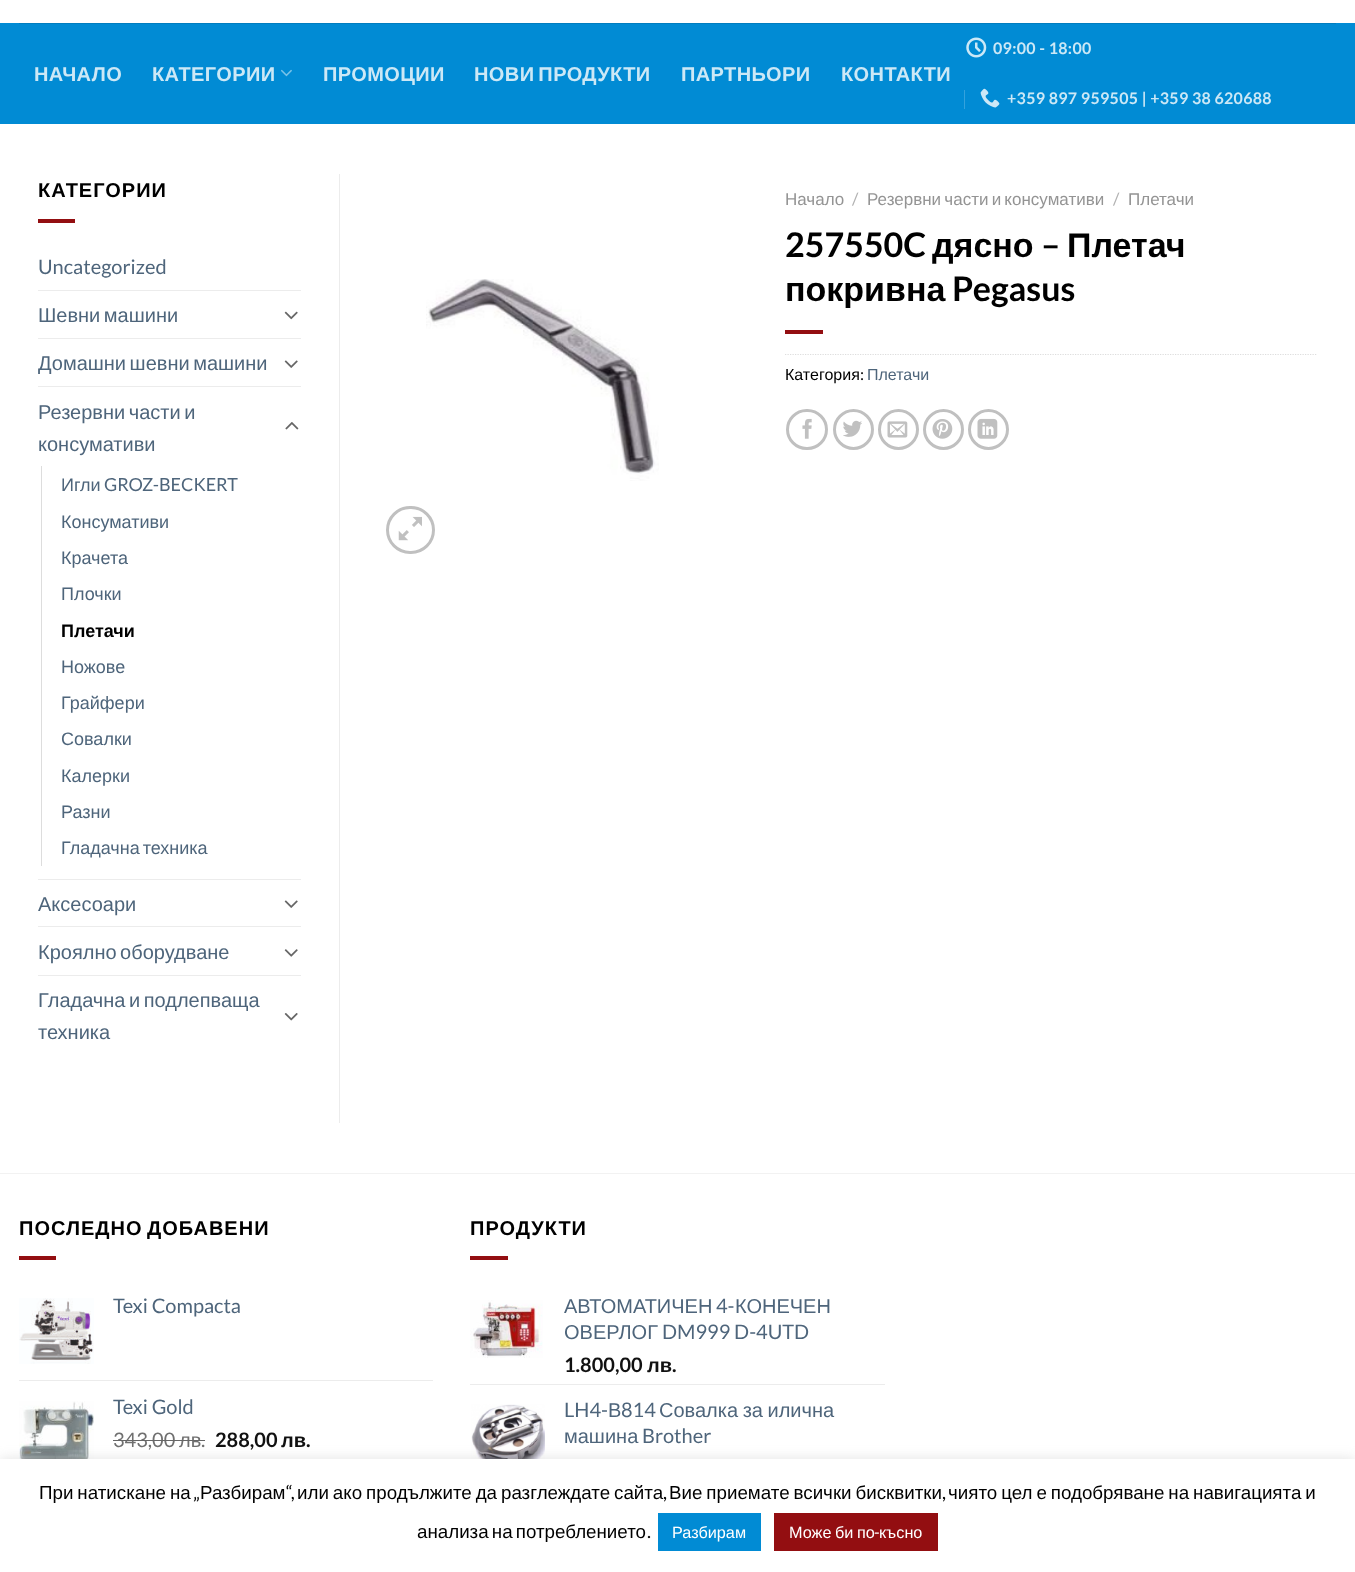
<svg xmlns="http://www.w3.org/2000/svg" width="1355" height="1572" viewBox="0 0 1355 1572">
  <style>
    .t1 { font: bold 20px Liberation Sans; letter-spacing: 0.4px; fill: #cce8f6; }
    .t2 { font: bold 16px Lato; letter-spacing: 0.3px; fill: #cce8f6; }
    .t3 { font: bold 20px Liberation Sans; letter-spacing: 1px; fill: #000; }
    .t4 { font: 20px Lato; fill: #4e657b; }
    .t5 { font: 20px Liberation Sans; fill: #4e657b; }
    .t6 { font: 18px Liberation Sans; fill: #4e657b; }
    .t7 { font: 18px Lato; fill: #4e657b; }
    .t8 { font: bold 18px Liberation Sans; fill: #000; }
    .t9 { font: 17px Liberation Sans; fill: #949494; }
    .t10 { font: 17px Lato; fill: #b2b2b2; }
    .t11 { font: bold 34px Lato; fill: #000; }
    .t12 { font: bold 34px Liberation Sans; fill: #000; }
    .t13 { font: 16px Liberation Sans; fill: #000; }
    .t14 { font: 16px Lato; fill: #000; }
    .t15 { font: 16px Liberation Sans; fill: #4e657b; }
    .t16 { font: 20px Lato; fill: #707070; }
    .t17 { font: 20px Liberation Sans; fill: #707070; }
    .t18 { font: bold 20px Lato; fill: #111; }
    .t19 { font: bold 20px Liberation Sans; fill: #111; }
    .t20 { font: 18.75px Liberation Sans; fill: #000; }
    .t21 { font: 18.75px Lato; fill: #000; }
    .t22 { font: 16.25px Liberation Sans; fill: #fff; }
    .t23 { font: 16.25px Lato; fill: #fff; }
  </style>
  <defs>
    <clipPath id="clip1"><rect x="113" y="1293" width="320" height="26"/></clipPath>
    <clipPath id="clip2"><rect x="113" y="1394" width="320" height="26"/></clipPath>
  </defs>
  <rect width="100%" height="100%" fill="#fff"/>
  <rect x="0" y="23" width="1355" height="101" fill="#018bd4"/>
  <rect x="19" y="23" width="1317" height="1" fill="#017dbf"/>
  <text x="34" y="81" class="t1">НАЧАЛО</text>
  <text x="152" y="81" class="t1">КАТЕГОРИИ</text>
  <image x="281" y="69" width="11" height="8" href="images/1.png"/>
  <text x="323" y="81" class="t1">ПРОМОЦИИ</text>
  <text x="474" y="81" word-spacing="-2" class="t1">НОВИ ПРОДУКТИ</text>
  <text x="681" y="81" class="t1">ПАРТНЬОРИ</text>
  <text x="841" y="81" class="t1">КОНТАКТИ</text>
  <image x="966" y="37" width="21" height="21" href="images/2.png"/>
  <text x="993" y="54" class="t2">09:00 - 18:00</text>
  <rect x="964" y="90" width="1" height="19" fill="#34a2dd"/>
  <image x="980" y="88" width="20" height="20" href="images/3.png"/>
  <text x="1007" y="104" class="t2">+359 897 959505 | +359 38 620688</text>
  <text x="38" y="197" class="t3">КАТЕГОРИИ</text>
  <rect x="38" y="219" width="37" height="4" fill="#930e11"/>
  <text x="38" y="274" class="t4">Uncategorized</text>
  <rect x="38" y="290" width="263" height="1" fill="#ececec"/>
  <text x="38" y="322" word-spacing="-2" class="t5">Шевни машини</text>
  <image x="284" y="311" width="14" height="9" href="images/4.png"/>
  <rect x="38" y="338" width="263" height="1" fill="#ececec"/>
  <text x="38" y="370" word-spacing="-2" class="t5">Домашни шевни машини</text>
  <image x="284" y="360" width="14" height="8" href="images/5.png"/>
  <rect x="38" y="386" width="263" height="1" fill="#ececec"/>
  <text x="38" y="419" word-spacing="-2" class="t5">Резервни части и</text>
  <text x="38" y="451" class="t5">консумативи</text>
  <image x="285" y="422" width="14" height="8" href="images/6.png"/>
  <rect x="41" y="466" width="1" height="400" fill="#ddd"/>
  <text x="61" y="491" class="t6">Игли</text>
  <text x="104" y="491" class="t7">GROZ-BECKERT</text>
  <text x="61" y="528" class="t6">Консумативи</text>
  <text x="61" y="564" class="t6">Крачета</text>
  <text x="61" y="600" class="t6">Плочки</text>
  <text x="61" y="637" class="t8">Плетачи</text>
  <text x="61" y="673" class="t6">Ножове</text>
  <text x="61" y="709" class="t6">Грайфери</text>
  <text x="61" y="745" class="t6">Совалки</text>
  <text x="61" y="782" class="t6">Калерки</text>
  <text x="61" y="818" class="t6">Разни</text>
  <text x="61" y="854" word-spacing="-2" class="t6">Гладачна техника</text>
  <rect x="38" y="879" width="263" height="1" fill="#ececec"/>
  <text x="38" y="911" class="t5">Аксесоари</text>
  <image x="284" y="900" width="14" height="8" href="images/5.png"/>
  <rect x="38" y="926" width="263" height="1" fill="#ececec"/>
  <text x="38" y="959" word-spacing="-2" class="t5">Кроялно оборудване</text>
  <image x="284" y="949" width="14" height="8" href="images/7.png"/>
  <rect x="38" y="975" width="263" height="1" fill="#ececec"/>
  <text x="38" y="1007" word-spacing="-2" class="t5">Гладачна и подлепваща</text>
  <text x="38" y="1039" class="t5">техника</text>
  <image x="284" y="1013" width="14" height="8" href="images/8.png"/>
  <rect x="339" y="174" width="1" height="949" fill="#ececec"/>
  <image x="426" y="279" width="233" height="202" href="images/9.png"/>
  <rect x="387.5" y="507.5" width="46" height="45" rx="22.5" fill="none" stroke="#c0c0c0" stroke-width="3"/>
  <image x="398" y="516" width="24" height="25" href="images/10.png"/>
  <text x="785" y="205" class="t9">Начало</text>
  <text x="852" y="205" class="t10">/</text>
  <text x="867" y="205" word-spacing="-1.5" class="t9">Резервни части и консумативи</text>
  <text x="1113" y="205" class="t10">/</text>
  <text x="1128" y="205" class="t9">Плетачи</text>
  <text x="785" y="257" class="t11">257550C</text>
  <text x="932" y="257" class="t12">дясно</text>
  <text x="1041" y="257" class="t11">–</text>
  <text x="1067" y="257" class="t12">Плетач</text>
  <text x="785" y="301" class="t12">покривна</text>
  <text x="952" y="301" class="t11">Pegasus</text>
  <rect x="785" y="330" width="38" height="4" fill="#930e11"/>
  <path d="M785 354.5H1317.5" fill="none" stroke="#ddd" stroke-width="1.2" stroke-dasharray="1.25 1.25"/>
  <text x="785" y="380" class="t13">Категория</text>
  <text x="860" y="380" class="t14">:</text>
  <text x="867" y="380" class="t15">Плетачи</text>
  <rect x="787.5" y="410.5" width="39" height="38" rx="19" fill="none" stroke="#c0c0c0" stroke-width="3"/>
  <image x="802" y="418" width="10" height="21" href="images/11.png"/>
  <circle cx="853.5" cy="429.5" r="19" fill="none" stroke="#c0c0c0" stroke-width="3"/>
  <image x="843" y="420" width="19" height="17" href="images/12.png"/>
  <circle cx="898.5" cy="429.5" r="19" fill="none" stroke="#c0c0c0" stroke-width="3"/>
  <image x="887" y="421" width="21" height="17" href="images/13.png"/>
  <circle cx="943.5" cy="429.5" r="19" fill="none" stroke="#c0c0c0" stroke-width="3"/>
  <image x="932" y="419" width="21" height="20" href="images/14.png"/>
  <circle cx="988.5" cy="429.5" r="19" fill="none" stroke="#c0c0c0" stroke-width="3"/>
  <image x="977" y="418" width="21" height="21" href="images/15.png"/>
  <rect x="0" y="1173" width="1355" height="1" fill="#f2f2f2"/>
  <text x="19" y="1235" word-spacing="-2" class="t3">ПОСЛЕДНО ДОБАВЕНИ</text>
  <rect x="19" y="1256" width="37" height="4" fill="#930e11"/>
  <image x="19" y="1298" width="75" height="66" href="images/16.png"/>
  <g clip-path="url(#clip1)">
    <text x="113" y="1313" class="t4">Texi Compacta</text>
  </g>
  <rect x="19" y="1380" width="414" height="1" fill="#ececec"/>
  <image x="19" y="1401" width="75" height="58" href="images/17.png"/>
  <g clip-path="url(#clip2)">
    <text x="113" y="1414" class="t4">Texi Gold</text>
  </g>
  <text x="113" y="1447" class="t16">343,00</text>
  <rect x="113" y="1440" width="66" height="1" fill="#666"/>
  <text x="179" y="1447" class="t17">лв</text>
  <rect x="179" y="1440" width="26" height="1" fill="#666"/>
  <text x="201" y="1447" class="t16">.</text>
  <text x="215" y="1447" class="t18">288,00</text>
  <text x="281" y="1447" class="t19">лв</text>
  <text x="306" y="1447" class="t18">.</text>
  <text x="470" y="1235" class="t3">ПРОДУКТИ</text>
  <rect x="470" y="1256" width="38" height="4" fill="#930e11"/>
  <image x="470" y="1300" width="73" height="58" href="images/18.png"/>
  <text x="564" y="1313" class="t5">АВТОМАТИЧЕН</text>
  <text x="716" y="1313" class="t4">4-</text>
  <text x="735" y="1313" class="t5">КОНЕЧЕН</text>
  <text x="564" y="1339" class="t5">ОВЕРЛОГ</text>
  <text x="662" y="1339" class="t4">DM999 D-4UTD</text>
  <text x="564" y="1372" class="t18">1.800,00</text>
  <text x="647" y="1372" class="t19">лв</text>
  <text x="672" y="1372" class="t18">.</text>
  <rect x="470" y="1384" width="415" height="1" fill="#ececec"/>
  <image x="471" y="1404" width="74" height="55" href="images/19.png"/>
  <text x="564" y="1417" class="t4">LH4-</text>
  <text x="608" y="1417" class="t5">В</text>
  <text x="621" y="1417" class="t4">814</text>
  <text x="659" y="1417" word-spacing="-1" class="t5">Совалка за илична</text>
  <text x="564" y="1443" class="t5">машина</text>
  <text x="642" y="1443" class="t4">Brother</text>
  <rect x="0" y="1458" width="1355" height="113" fill="#acabab4d" filter="blur(6px)"/>
  <rect x="0" y="1459" width="1355" height="113" fill="#fff"/>
  <text x="39" y="1499" word-spacing="-1.25" class="t20">При натискане на</text>
  <text x="193" y="1499" class="t21">„</text>
  <text x="200" y="1499" class="t20">Разбирам</text>
  <text x="286" y="1499" class="t21">“,</text>
  <text x="297" y="1499" word-spacing="-1.25" class="t20">или ако продължите да разглеждате сайта</text>
  <text x="663" y="1499" class="t21">,</text>
  <text x="669" y="1499" word-spacing="-1.25" class="t20">Вие приемате всички бисквитки</text>
  <text x="942" y="1499" class="t21">,</text>
  <text x="948" y="1499" word-spacing="-1.25" class="t20">чиято цел е подобряване на навигацията и</text>
  <text x="417" y="1538" word-spacing="-2" class="t20">анализа на потреблението</text>
  <text x="647" y="1538" class="t21">.</text>
  <rect x="658" y="1513" width="103" height="38" fill="#018bd4"/>
  <text x="672" y="1538" class="t22">Разбирам</text>
  <rect x="774" y="1513" width="164" height="38" fill="#930e11"/>
  <text x="789" y="1538" word-spacing="-1" class="t22">Може би по</text>
  <text x="874" y="1538" class="t23">-</text>
  <text x="879" y="1538" class="t22">късно</text>
</svg>
